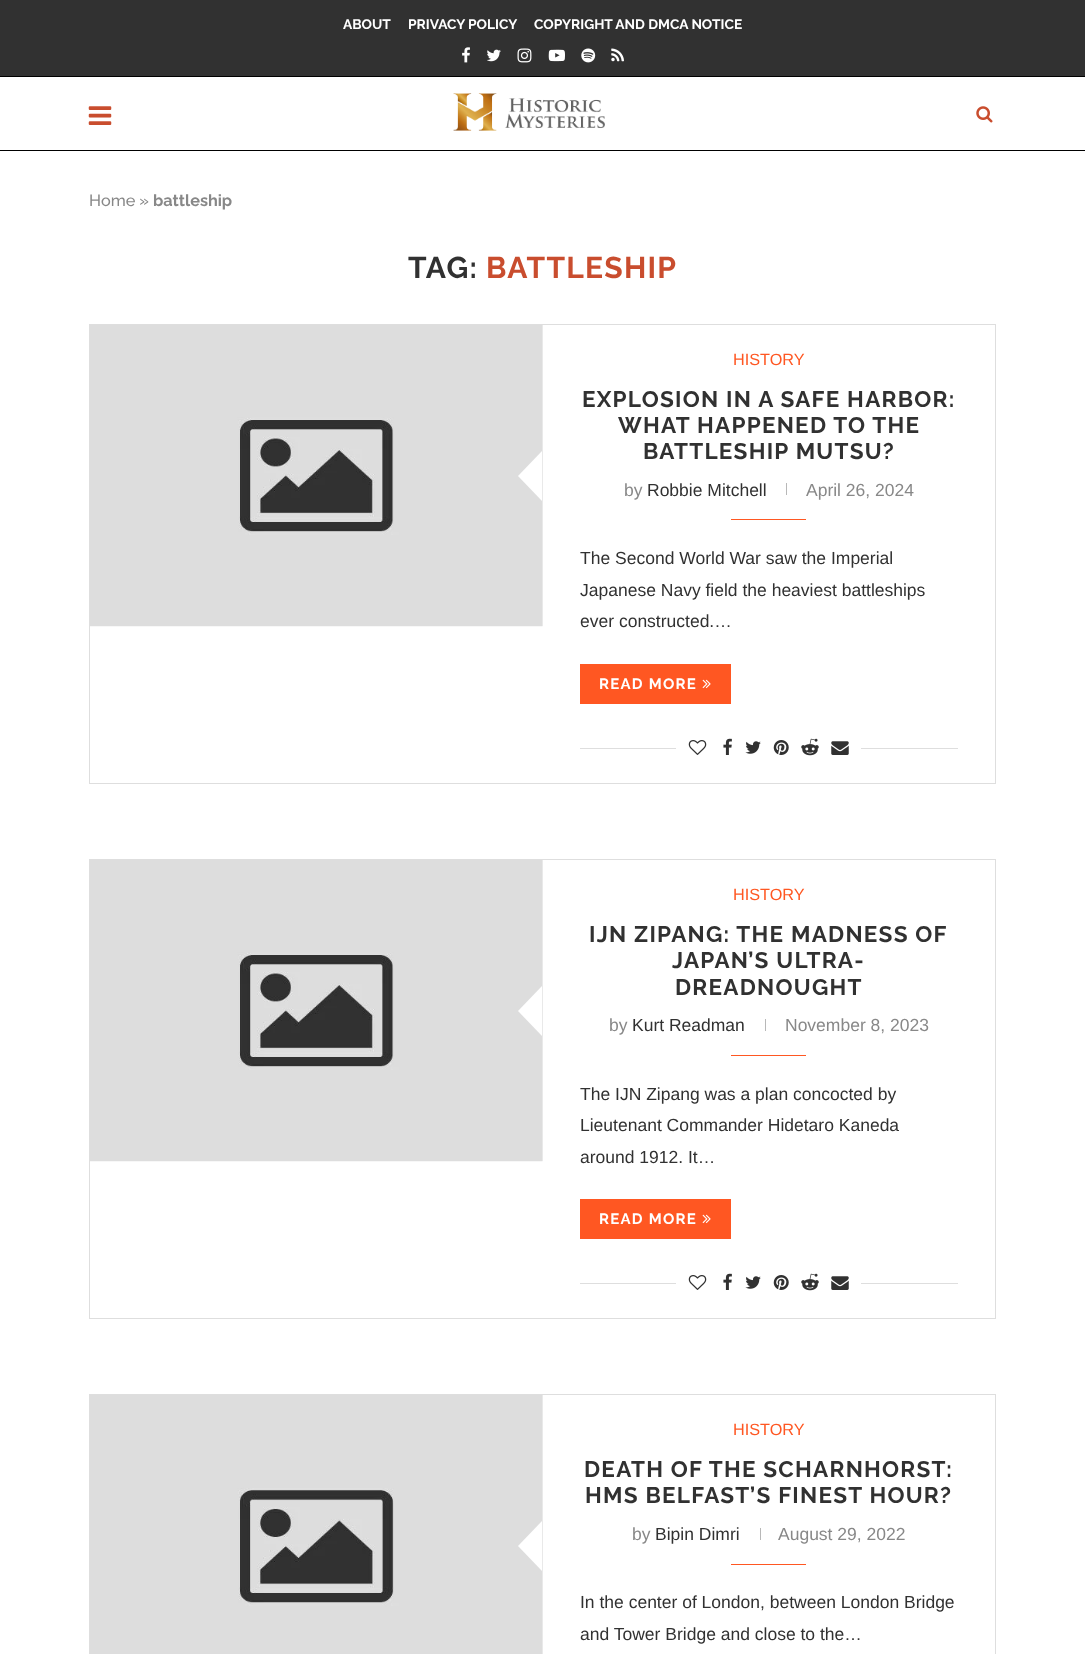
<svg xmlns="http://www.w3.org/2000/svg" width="1085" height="1654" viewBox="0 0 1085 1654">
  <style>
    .t1 { font: bold 13.75px Raleway; fill: #fff; }
    .t2 { font: 500 16.25px Raleway; fill: #888; }
    .t3 { font: bold 16.25px Raleway; fill: #888; }
    .t4 { font: bold 30px Raleway; letter-spacing: 1.25px; fill: #313131; }
    .t5 { font: bold 30px Raleway; letter-spacing: 1.25px; fill: #c94d2e; }
    .t6 { font: 16.25px Liberation Sans; fill: #ff5722; }
    .t7 { font: bold 22.5px Raleway; letter-spacing: 1.25px; fill: #313131; }
    .t8 { font: 17.5px Liberation Sans; fill: #888; }
    .t9 { font: 17.5px Liberation Sans; fill: #313131; }
    .t10 { font: bold 15px Raleway; letter-spacing: 1.25px; fill: #fff; }
  </style>
  <rect width="100%" height="100%" fill="#fff"/>
  <rect x="0" y="0" width="1085" height="76" fill="#313131"/>
  <text x="343" y="29" class="t1">ABOUT</text>
  <text x="408" y="29" class="t1">PRIVACY POLICY</text>
  <text x="534" y="29" class="t1">COPYRIGHT AND DMCA NOTICE</text>
  <image x="462" y="47" width="8" height="16" href="images/1.png"/>
  <image x="487" y="49" width="14" height="13" href="images/2.png"/>
  <image x="517" y="48" width="15" height="15" href="images/3.png"/>
  <image x="548" y="49" width="17" height="13" href="images/4.png"/>
  <image x="581" y="48" width="15" height="15" href="images/5.png"/>
  <image x="611" y="48" width="13" height="14" href="images/6.png"/>
  <rect x="0" y="76" width="1085" height="1" fill="#000"/>
  <rect x="0" y="150" width="1085" height="1" fill="#000"/>
  <image x="88" y="106" width="24" height="19" href="images/7.png"/>
  <image x="453" y="93" width="152" height="38" href="images/8.png"/>
  <image x="976" y="106" width="17" height="17" href="images/9.png"/>
  <text x="89" y="206" class="t2">Home »</text>
  <text x="153" y="206" class="t3">battleship</text>
  <text x="408" y="278" class="t4">TAG:</text>
  <text x="486" y="278" class="t5">BATTLESHIP</text>
  <rect x="89.5" y="324.5" width="906" height="459" fill="none" stroke="#dedede"/>
  <rect x="542" y="325" width="1" height="301" fill="#f5f5f5"/>
  <image x="90" y="325" width="453" height="302" href="images/10.png"/>
  <path d="M542 451V501L518 476Z" fill="#fff"/>
  <text x="733" y="365" class="t6">HISTORY</text>
  <text x="582" y="407" class="t7">EXPLOSION IN A SAFE HARBOR:</text>
  <text x="618" y="433" class="t7">WHAT HAPPENED TO THE</text>
  <text x="643" y="459" class="t7">BATTLESHIP MUTSU?</text>
  <text x="624" y="496" class="t8">by</text>
  <text x="647" y="496" class="t9">Robbie Mitchell</text>
  <rect x="786" y="483" width="1" height="12" fill="#b8b8b8"/>
  <text x="806" y="496" class="t8">April 26, 2024</text>
  <rect x="731" y="519" width="75" height="1" fill="#ff5722"/>
  <text x="580" y="564" class="t9">The Second World War saw the Imperial</text>
  <text x="580" y="596" class="t9">Japanese Navy field the heaviest battleships</text>
  <text x="580" y="627" class="t9">ever constructed.…</text>
  <rect x="580" y="664" width="151" height="40" fill="#ff5722"/>
  <text x="599" y="689" class="t10">READ MORE</text>
  <image x="702" y="679" width="9" height="10" href="images/11.png"/>
  <rect x="580" y="748" width="378" height="1" fill="#dedede"/>
  <rect x="676" y="748" width="185" height="1" fill="#fff"/>
  <image x="688" y="740" width="19" height="15" href="images/12.png"/>
  <image x="723" y="738" width="9" height="17" href="images/13.png"/>
  <image x="745" y="741" width="16" height="13" href="images/14.png"/>
  <image x="773" y="740" width="16" height="15" href="images/15.png"/>
  <image x="801" y="738" width="18" height="18" href="images/16.png"/>
  <image x="831" y="741" width="18" height="14" href="images/17.png"/>
  <rect x="89.5" y="859.5" width="906" height="459" fill="none" stroke="#dedede"/>
  <rect x="542" y="860" width="1" height="301" fill="#f5f5f5"/>
  <image x="90" y="860" width="453" height="302" href="images/10.png"/>
  <path d="M542 986V1036L518 1011Z" fill="#fff"/>
  <text x="733" y="900" class="t6">HISTORY</text>
  <text x="589" y="942" class="t7">IJN ZIPANG: THE MADNESS OF</text>
  <text x="672" y="968" class="t7">JAPAN’S ULTRA-</text>
  <text x="675" y="995" class="t7">DREADNOUGHT</text>
  <text x="609" y="1031" class="t8">by</text>
  <text x="632" y="1031" class="t9">Kurt Readman</text>
  <rect x="765" y="1019" width="1" height="12" fill="#b8b8b8"/>
  <text x="785" y="1031" class="t8">November 8, 2023</text>
  <rect x="731" y="1055" width="75" height="1" fill="#ff5722"/>
  <text x="580" y="1100" class="t9">The IJN Zipang was a plan concocted by</text>
  <text x="580" y="1131" class="t9">Lieutenant Commander Hidetaro Kaneda</text>
  <text x="580" y="1163" class="t9">around 1912. It…</text>
  <rect x="580" y="1199" width="151" height="40" fill="#ff5722"/>
  <text x="599" y="1224" class="t10">READ MORE</text>
  <image x="702" y="1214" width="9" height="10" href="images/11.png"/>
  <rect x="580" y="1283" width="378" height="1" fill="#dedede"/>
  <rect x="676" y="1283" width="185" height="1" fill="#fff"/>
  <image x="688" y="1275" width="19" height="15" href="images/12.png"/>
  <image x="723" y="1273" width="9" height="17" href="images/13.png"/>
  <image x="745" y="1276" width="16" height="13" href="images/14.png"/>
  <image x="773" y="1275" width="16" height="15" href="images/15.png"/>
  <image x="801" y="1273" width="18" height="18" href="images/16.png"/>
  <image x="831" y="1276" width="18" height="14" href="images/17.png"/>
  <rect x="89.5" y="1394.5" width="906" height="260" fill="none" stroke="#dedede"/>
  <rect x="542" y="1395" width="1" height="259" fill="#f5f5f5"/>
  <image x="90" y="1395" width="453" height="259" href="images/18.png"/>
  <path d="M542 1521V1571L518 1546Z" fill="#fff"/>
  <text x="733" y="1435" class="t6">HISTORY</text>
  <text x="584" y="1477" class="t7">DEATH OF THE SCHARNHORST:</text>
  <text x="585" y="1503" class="t7">HMS BELFAST’S FINEST HOUR?</text>
  <text x="632" y="1540" class="t8">by</text>
  <text x="655" y="1540" class="t9">Bipin Dimri</text>
  <rect x="760" y="1528" width="1" height="12" fill="#b8b8b8"/>
  <text x="778" y="1540" class="t8">August 29, 2022</text>
  <rect x="731" y="1564" width="75" height="1" fill="#ff5722"/>
  <text x="580" y="1608" class="t9">In the center of London, between London Bridge</text>
  <text x="580" y="1640" class="t9">and Tower Bridge and close to the…</text>
</svg>
